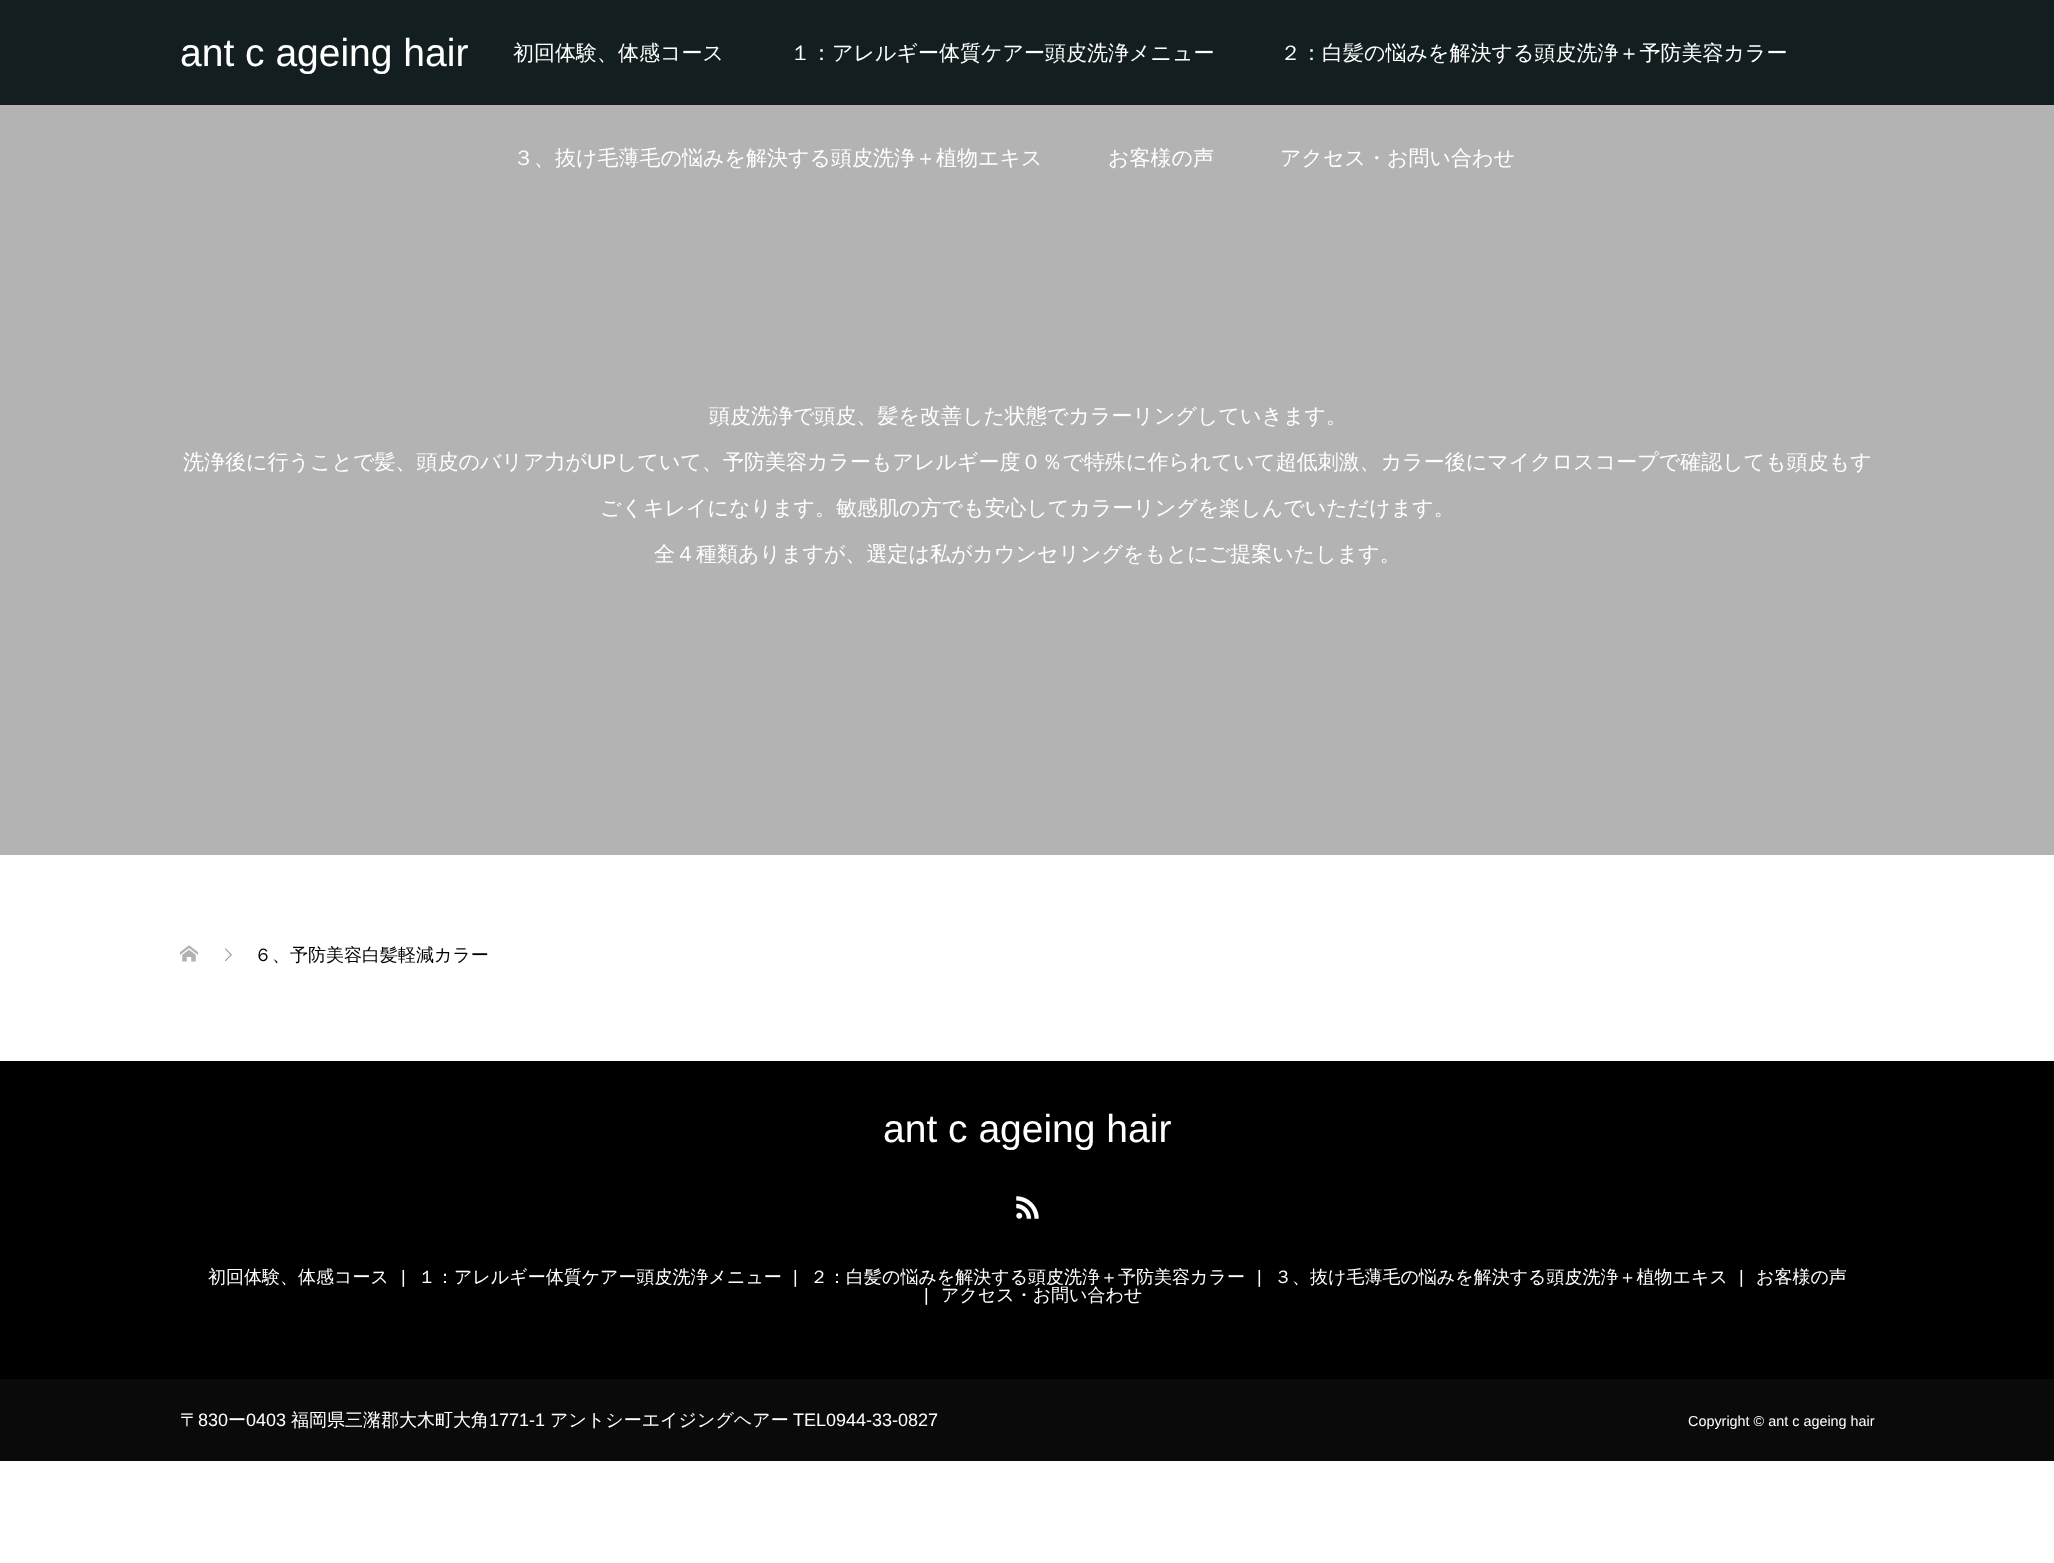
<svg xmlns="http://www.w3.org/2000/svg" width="2054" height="1563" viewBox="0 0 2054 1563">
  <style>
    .t1 { font: 39px Liberation Sans; fill: #fff; }
    .t2 { font: 500 21px WenQuanYi Zen Hei; fill: #fff; }
    .t3 { font: 21px Liberation Sans; fill: #fff; }
    .t4 { font: 500 18px WenQuanYi Zen Hei; fill: #000; }
    .t5 { font: 500 18px WenQuanYi Zen Hei; fill: #fff; }
    .t6 { font: 18px Liberation Sans; fill: #fff; }
    .t7 { font: 14.4px Liberation Sans; fill: #fff; }
  </style>
  <rect width="100%" height="100%" fill="#fff"/>
  <rect x="0" y="0" width="2054" height="105" fill="#121e1f"/>
  <text x="180" y="66" class="t1">ant c ageing hair</text>
  <text x="513" y="60" class="t2">初回体験、体感コース</text>
  <text x="790" y="60" class="t2">１：アレルギー体質ケアー頭皮洗浄メニュー</text>
  <text x="1280" y="60" class="t2">２：白髪の悩みを解決する頭皮洗浄＋予防美容カラー</text>
  <rect x="0" y="105" width="2054" height="750" fill="#b3b3b3"/>
  <text x="513" y="165" class="t2">３、抜け毛薄毛の悩みを解決する頭皮洗浄＋植物エキス</text>
  <text x="1108" y="165" class="t2">お客様の声</text>
  <text x="1280" y="165" class="t2">アクセス・お問い合わせ</text>
  <text x="709" y="423" class="t2">頭皮洗浄で頭皮、髪を改善した状態でカラーリングしていきます。</text>
  <text x="183" y="469" class="t2">洗浄後に行うことで髪、頭皮のバリア力が</text>
  <text x="587" y="469" class="t3">UP</text>
  <text x="616" y="469" class="t2">していて、予防美容カラーもアレルギー度０％で特殊に作られていて超低刺激、カラー後にマイクロスコープで確認しても頭皮もす</text>
  <text x="600" y="515" class="t2">ごくキレイになります。敏感肌の方でも安心してカラーリングを楽しんでいただけます。</text>
  <text x="654" y="561" class="t2">全４種類ありますが、選定は私がカウンセリングをもとにご提案いたします。</text>
  <image x="180" y="945" width="18" height="17" href="images/1.png"/>
  <image x="225" y="948" width="7" height="14" href="images/2.png"/>
  <text x="254" y="961" class="t4">６、予防美容白髪軽減カラー</text>
  <rect x="0" y="1061" width="2054" height="318" fill="#000"/>
  <text x="883" y="1142" class="t1">ant c ageing hair</text>
  <image x="1016" y="1196" width="23" height="23" href="images/3.png"/>
  <text x="208" y="1283" class="t5">初回体験、体感コース</text>
  <text x="401" y="1283" class="t6">|</text>
  <text x="418" y="1283" class="t5">１：アレルギー体質ケアー頭皮洗浄メニュー</text>
  <text x="793" y="1283" class="t6">|</text>
  <text x="810" y="1283" class="t5">２：白髪の悩みを解決する頭皮洗浄＋予防美容カラー</text>
  <text x="1257" y="1283" class="t6">|</text>
  <text x="1274" y="1283" class="t5">３、抜け毛薄毛の悩みを解決する頭皮洗浄＋植物エキス</text>
  <text x="1739" y="1283" class="t6">|</text>
  <text x="1756" y="1283" class="t5">お客様の声</text>
  <text x="924" y="1301" class="t6">|</text>
  <text x="941" y="1301" class="t5">アクセス・お問い合わせ</text>
  <rect x="0" y="1379" width="2054" height="82" fill="#0a0a0a"/>
  <text x="180" y="1426" class="t5">〒</text>
  <text x="198" y="1426" class="t6">830</text>
  <text x="228" y="1426" class="t5">ー</text>
  <text x="246" y="1426" class="t6">0403</text>
  <text x="291" y="1426" class="t5">福岡県三潴郡大木町大角</text>
  <text x="489" y="1426" class="t6">1771-1</text>
  <text x="550" y="1426" class="t5">アントシーエイジングヘアー</text>
  <text x="793" y="1426" class="t6">TEL0944-33-0827</text>
  <text x="1688" y="1426" class="t7">Copyright © ant c ageing hair</text>
</svg>
